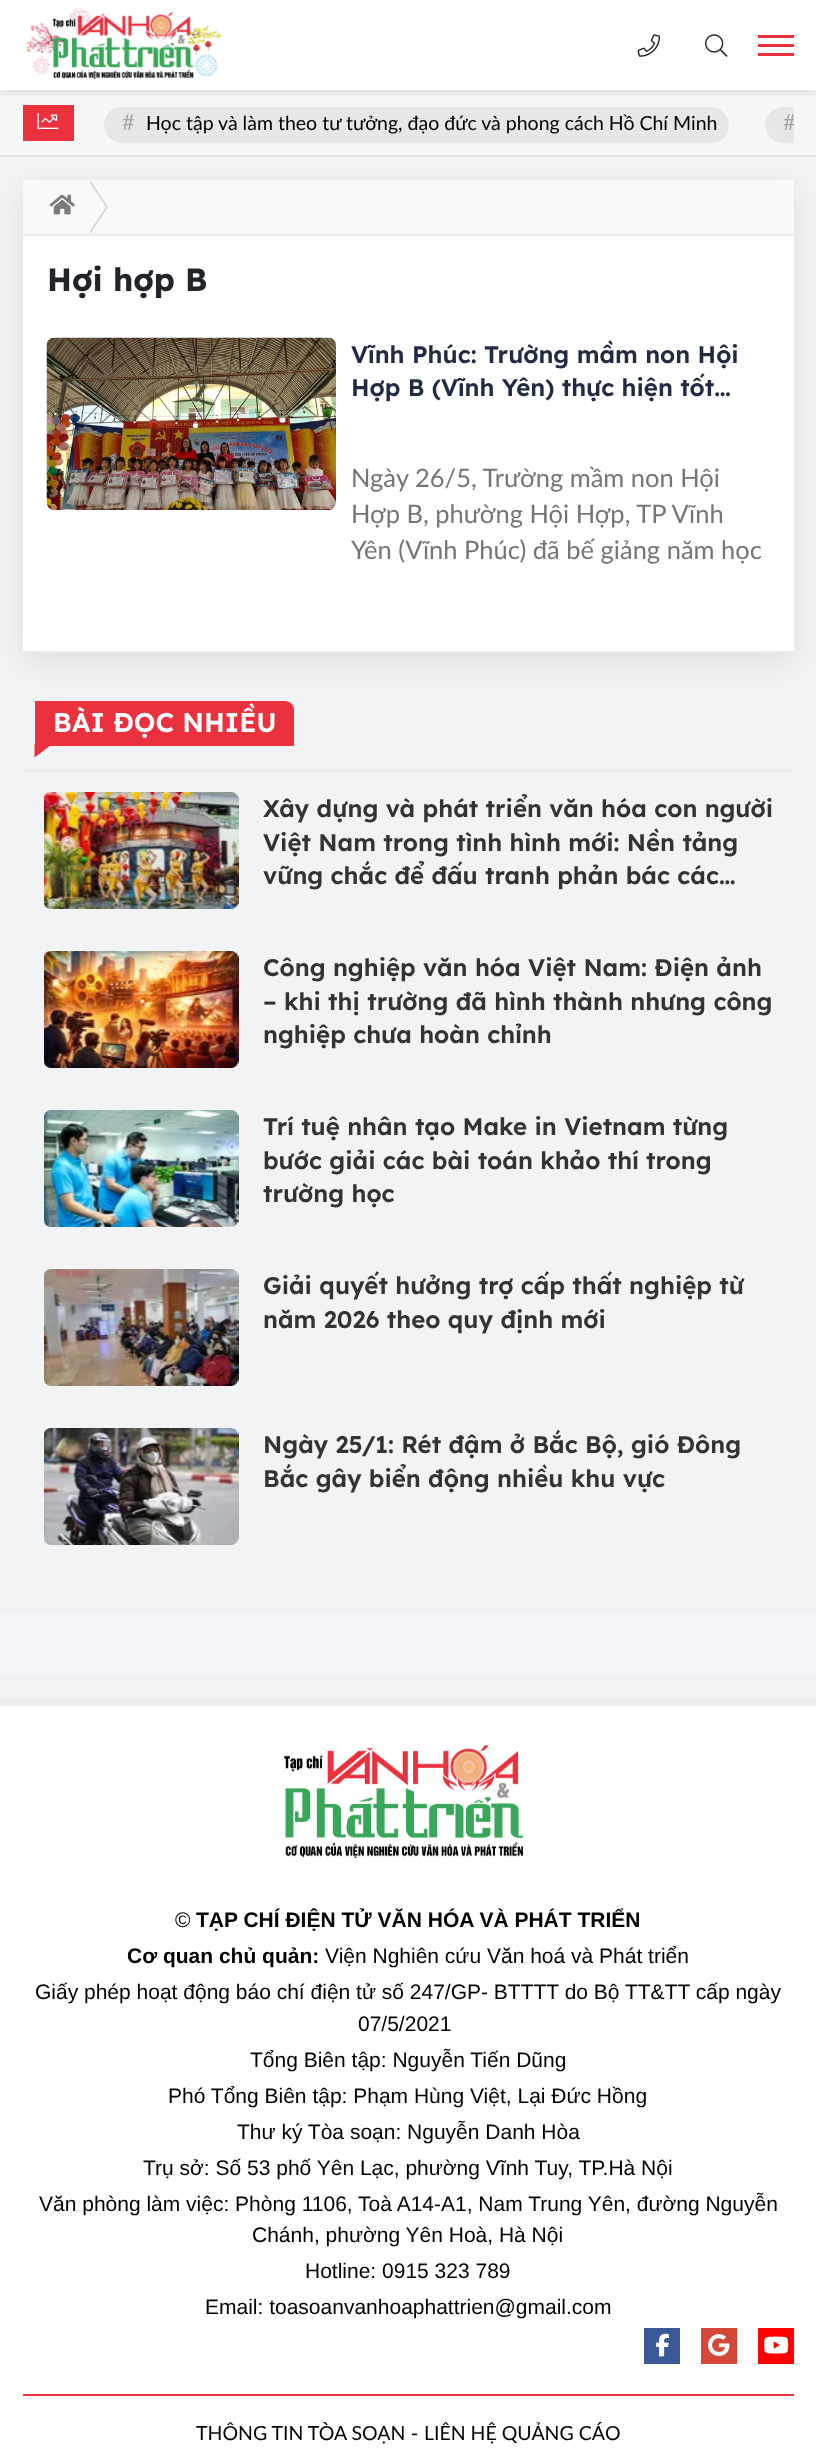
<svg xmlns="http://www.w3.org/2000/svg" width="816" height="2458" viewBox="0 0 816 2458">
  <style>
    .t1 { font: 22px Lato; fill: #a7a7a7; }
    .t2 { font: 19.5px Lato; fill: #000; }
    .t3 { font: bold 32px Lexend Deca; fill: #212529; }
    .t4 { font: 600 24px Lexend Deca; fill: #222b45; }
    .t5 { font: 25.5px Lato; fill: #757575; }
    .t6 { font: 600 27px Lexend Deca; fill: #fff; }
    .t7 { font: 600 24px Lexend Deca; fill: #333; }
    .t8 { font: 21px Liberation Sans; fill: #000; }
    .t9 { font: bold 21px Liberation Sans; fill: #000; }
  </style>
  <defs>
    <clipPath id="clip1"><rect x="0" y="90" width="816" height="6"/></clipPath>
    <clipPath id="clip2"><rect x="89" y="105" width="705" height="38"/></clipPath>
  </defs>
  <rect width="100%" height="100%" fill="#fff"/>
  <rect x="0" y="90" width="816" height="65" fill="#f7f7f7"/>
  <rect x="23" y="105" width="51" height="36" fill="#eb303e"/>
  <g clip-path="url(#clip1)">
    <rect x="0" y="3" width="816" height="90" fill="#0000001a" filter="blur(4px)"/>
  </g>
  <image x="24" y="7" width="198" height="73" href="images/1.png"/>
  <image x="637" y="34" width="23" height="23" href="images/2.png"/>
  <image x="705" y="34" width="23" height="23" href="images/3.png"/>
  <rect x="758" y="44" width="36" height="3" fill="#eb303e"/>
  <rect x="758" y="35" width="36" height="3" fill="#eb303e"/>
  <rect x="758" y="53" width="36" height="3" fill="#eb303e"/>
  <rect x="0" y="155" width="816" height="2" fill="#e1e1e1"/>
  <image x="37" y="113" width="22" height="16" href="images/4.png"/>
  <rect x="104" y="107" width="625" height="36" rx="18" fill="#e7e7e7"/>
  <text x="122" y="130" class="t1">#</text>
  <text x="146" y="130" class="t2">Học tập và làm theo tư tưởng, đạo đức và phong cách Hồ Chí Minh</text>
  <path d="M783 107H794V143H783C773 143 765 135 765 125C765 115 773 107 783 107Z" fill="#e7e7e7"/>
  <g clip-path="url(#clip2)">
    <text x="783" y="130" class="t1">#</text>
  </g>
  <rect x="0" y="157" width="816" height="1541" fill="#f2f3f5"/>
  <rect x="23" y="189" width="771" height="473" fill="#00000014" filter="blur(16.5px)"/>
  <rect x="23" y="236" width="771" height="415" fill="#fff"/>
  <rect x="23" y="180" width="771" height="54" fill="#f8f9fa"/>
  <rect x="23" y="234" width="771" height="2" fill="#eaebec"/>
  <image x="49" y="194" width="26" height="21" href="images/5.png"/>
  <path d="M90 234V180L108 207Z" fill="#d5d5d5"/>
  <path d="M88 234V180L106 207Z" fill="#f8f9fa"/>
  <rect x="34" y="651" width="749" height="2" fill="#eaebec"/>
  <text x="47" y="291" class="t3">Hợi hợp B</text>
  <image x="46" y="337" width="290" height="173" href="images/6.png"/>
  <text x="351" y="363" class="t4">Vĩnh Phúc: Trường mầm non Hội</text>
  <text x="351" y="396" class="t4">Hợp B (Vĩnh Yên) thực hiện tốt…</text>
  <text x="351" y="487" class="t5">Ngày 26/5, Trường mầm non Hội</text>
  <text x="351" y="523" class="t5">Hợp B, phường Hội Hợp, TP Vĩnh</text>
  <text x="351" y="559" class="t5">Yên (Vĩnh Phúc) đã bế giảng năm học</text>
  <rect x="23" y="770" width="771" height="2" fill="#eaebec"/>
  <path d="M35 701H285C290 701 294 705 294 710V746H35Z" fill="#eb303e"/>
  <text x="53" y="732" class="t6">BÀI ĐỌC NHIỀU</text>
  <path d="M34.5 744H52.5L34.5 757.5Z" fill="#eb303e"/>
  <rect x="44" y="792" width="195" height="117" rx="8" fill="#f5f4f4"/>
  <image x="44" y="792" width="195" height="117" href="images/7.png"/>
  <text x="263" y="817" class="t7">Xây dựng và phát triển văn hóa con người</text>
  <text x="263" y="851" class="t7">Việt Nam trong tình hình mới: Nền tảng</text>
  <text x="263" y="884" class="t7">vững chắc để đấu tranh phản bác các…</text>
  <rect x="44" y="951" width="195" height="117" rx="8" fill="#f5f4f4"/>
  <image x="44" y="951" width="195" height="117" href="images/8.png"/>
  <text x="263" y="976" class="t7">Công nghiệp văn hóa Việt Nam: Điện ảnh</text>
  <text x="263" y="1010" class="t7">– khi thị trường đã hình thành nhưng công</text>
  <text x="263" y="1043" class="t7">nghiệp chưa hoàn chỉnh</text>
  <rect x="44" y="1110" width="195" height="117" rx="8" fill="#f5f4f4"/>
  <image x="44" y="1110" width="195" height="117" href="images/9.png"/>
  <text x="263" y="1135" class="t7">Trí tuệ nhân tạo Make in Vietnam từng</text>
  <text x="263" y="1169" class="t7">bước giải các bài toán khảo thí trong</text>
  <text x="263" y="1202" class="t7">trường học</text>
  <rect x="44" y="1269" width="195" height="117" rx="8" fill="#f5f4f4"/>
  <image x="44" y="1269" width="195" height="117" href="images/10.png"/>
  <text x="263" y="1294" class="t7">Giải quyết hưởng trợ cấp thất nghiệp từ</text>
  <text x="263" y="1328" class="t7">năm 2026 theo quy định mới</text>
  <rect x="44" y="1428" width="195" height="117" rx="8" fill="#f5f4f4"/>
  <image x="44" y="1428" width="195" height="117" href="images/11.png"/>
  <text x="263" y="1453" class="t7">Ngày 25/1: Rét đậm ở Bắc Bộ, gió Đông</text>
  <text x="263" y="1487" class="t7">Bắc gây biển động nhiều khu vực</text>
  <rect x="0" y="1614" width="816" height="60" fill="#f4f6fa"/>
  <rect x="0" y="1698" width="816" height="8" fill="#eee"/>
  <image x="284" y="1745" width="240" height="113" href="images/12.png"/>
  <text x="175" y="1927" class="t8">©</text>
  <text x="196" y="1927" class="t9">TẠP CHÍ ĐIỆN TỬ VĂN HÓA VÀ PHÁT TRIỂN</text>
  <text x="127" y="1963" class="t9">Cơ quan chủ quản:</text>
  <text x="325" y="1963" class="t8">Viện Nghiên cứu Văn hoá và Phát triển</text>
  <text x="35" y="1999" class="t8">Giấy phép hoạt động báo chí điện tử số 247/GP- BTTTT do Bộ TT&amp;TT cấp ngày</text>
  <text x="358" y="2031" class="t8">07/5/2021</text>
  <text x="250" y="2067" class="t8">Tổng Biên tập: Nguyễn Tiến Dũng</text>
  <text x="168" y="2103" class="t8">Phó Tổng Biên tập: Phạm Hùng Việt, Lại Đức Hồng</text>
  <text x="237" y="2139" class="t8">Thư ký Tòa soạn: Nguyễn Danh Hòa</text>
  <text x="143" y="2175" class="t8">Trụ sở: Số 53 phố Yên Lạc, phường Vĩnh Tuy, TP.Hà Nội</text>
  <text x="39" y="2211" class="t8">Văn phòng làm việc: Phòng 1106, Toà A14-A1, Nam Trung Yên, đường Nguyễn</text>
  <text x="252" y="2242" class="t8">Chánh, phường Yên Hoà, Hà Nội</text>
  <text x="305" y="2278" class="t8">Hotline: 0915 323 789</text>
  <text x="205" y="2314" class="t8">Email: toasoanvanhoaphattrien@gmail.com</text>
  <rect x="644" y="2328" width="36" height="36" fill="#3b5998"/>
  <image x="656" y="2333" width="13" height="24" href="images/13.png"/>
  <rect x="701" y="2328" width="36" height="36" fill="#d34836"/>
  <image x="708" y="2334" width="22" height="22" href="images/14.png"/>
  <rect x="758" y="2328" width="36" height="36" fill="#f00"/>
  <image x="764" y="2336" width="25" height="18" href="images/15.png"/>
  <rect x="23" y="2394" width="771" height="2" fill="#eb303e"/>
  <text x="196" y="2440" class="t2">THÔNG TIN TÒA SOẠN</text>
  <text x="411" y="2440" class="t8">-</text>
  <text x="424" y="2440" class="t2">LIÊN HỆ QUẢNG CÁO</text>
</svg>
